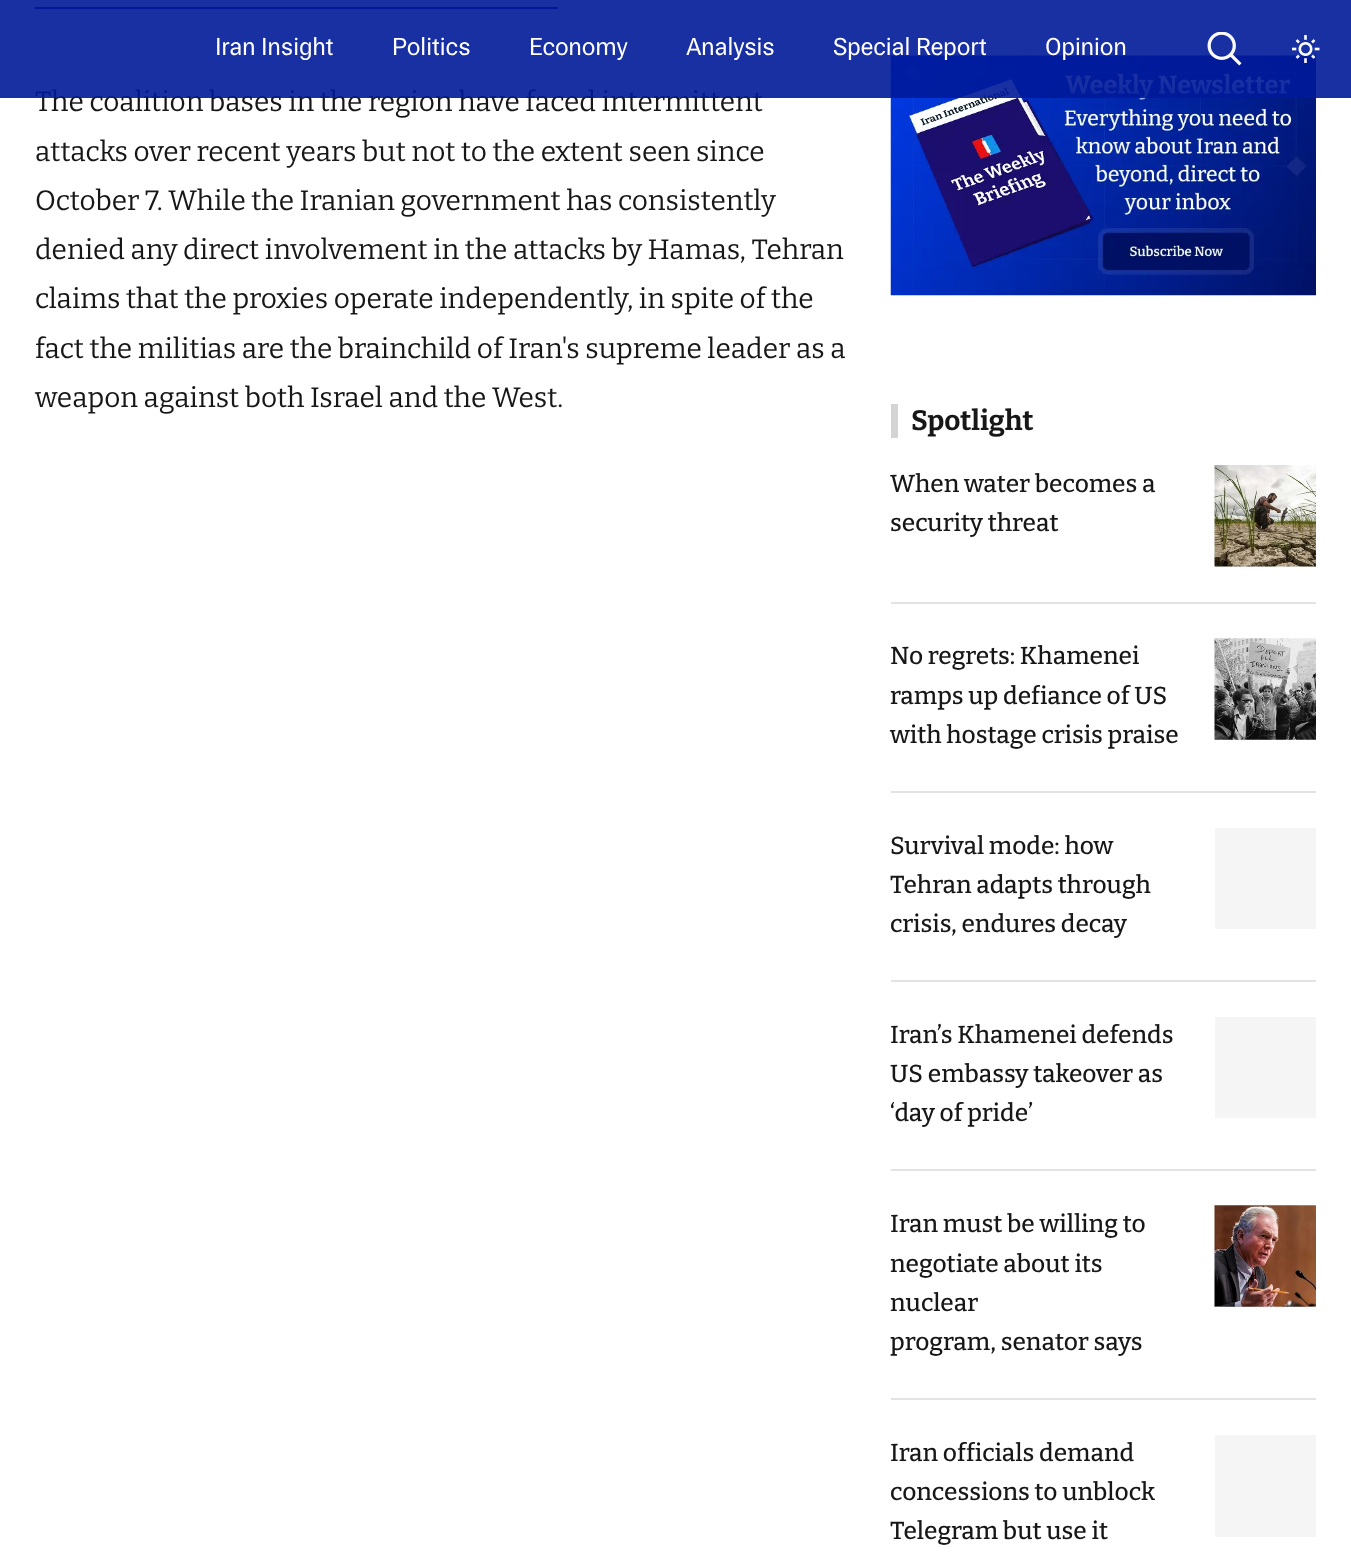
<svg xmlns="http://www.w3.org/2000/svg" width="1351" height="1562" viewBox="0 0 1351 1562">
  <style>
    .t1 { font: 28px Bitter; fill: #171717; }
    .t2 { font: 500 24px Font; fill: #fff; }
    .t3 { font: bold 28px Bitter; fill: #171717; }
    .t4 { font: 500 24.5px Bitter; fill: #171717; }
  </style>
  <rect width="100%" height="100%" fill="#fff"/>
  <rect x="35" y="7" width="523" height="2" fill="#001a99"/>
  <text x="35" y="111" class="t1">The coalition bases in the region have faced intermittent</text>
  <image x="890" y="55" width="426" height="241" href="images/3.png"/>
  <rect x="0" y="0" width="1351" height="98" fill="#001a99e6"/>
  <text x="215" y="55" class="t2">Iran Insight</text>
  <text x="392" y="55" class="t2">Politics</text>
  <text x="529" y="55" class="t2">Economy</text>
  <text x="686" y="55" class="t2">Analysis</text>
  <text x="833" y="55" class="t2">Special Report</text>
  <text x="1045" y="55" class="t2">Opinion</text>
  <image x="1207" y="32" width="35" height="34" href="images/1.png"/>
  <image x="1292" y="35" width="28" height="28" href="images/2.png"/>
  <text x="35" y="161" class="t1">attacks over recent years but not to the extent seen since</text>
  <text x="35" y="210" class="t1">October 7. While the Iranian government has consistently</text>
  <text x="35" y="259" class="t1">denied any direct involvement in the attacks by Hamas, Tehran</text>
  <text x="35" y="308" class="t1">claims that the proxies operate independently, in spite of the</text>
  <text x="35" y="358" class="t1">fact the militias are the brainchild of Iran's supreme leader as a</text>
  <text x="35" y="407" class="t1">weapon against both Israel and the West.</text>
  <rect x="891" y="404" width="7" height="34" fill="#d4d4d4"/>
  <text x="911" y="430" class="t3">Spotlight</text>
  <text x="890" y="492" class="t4">When water becomes a</text>
  <text x="890" y="531" class="t4">security threat</text>
  <rect x="1215" y="566" width="101" height="1" fill="#f5f5f5"/>
  <image x="1214" y="465" width="102" height="102" href="images/4.png"/>
  <rect x="891" y="602" width="425" height="2" fill="#e3e3e3"/>
  <text x="890" y="664" class="t4">No regrets: Khamenei</text>
  <text x="890" y="704" class="t4">ramps up defiance of US</text>
  <text x="890" y="743" class="t4">with hostage crisis praise</text>
  <image x="1214" y="638" width="102" height="102" href="images/5.png"/>
  <rect x="891" y="791" width="425" height="2" fill="#e3e3e3"/>
  <text x="890" y="854" class="t4">Survival mode: how</text>
  <text x="890" y="893" class="t4">Tehran adapts through</text>
  <text x="890" y="932" class="t4">crisis, endures decay</text>
  <rect x="1215" y="828" width="101" height="101" fill="#f5f5f5"/>
  <rect x="891" y="980" width="425" height="2" fill="#e3e3e3"/>
  <text x="890" y="1043" class="t4">Iran’s Khamenei defends</text>
  <text x="890" y="1082" class="t4">US embassy takeover as</text>
  <text x="890" y="1121" class="t4">‘day of pride’</text>
  <rect x="1215" y="1017" width="101" height="101" fill="#f5f5f5"/>
  <rect x="891" y="1169" width="425" height="2" fill="#e3e3e3"/>
  <text x="890" y="1232" class="t4">Iran must be willing to</text>
  <text x="890" y="1272" class="t4">negotiate about its</text>
  <text x="890" y="1311" class="t4">nuclear</text>
  <text x="890" y="1350" class="t4">program, senator says</text>
  <image x="1214" y="1205" width="102" height="102" href="images/6.png"/>
  <rect x="891" y="1398" width="425" height="2" fill="#e3e3e3"/>
  <text x="890" y="1461" class="t4">Iran officials demand</text>
  <text x="890" y="1500" class="t4">concessions to unblock</text>
  <text x="890" y="1539" class="t4">Telegram but use it</text>
  <rect x="1215" y="1435" width="101" height="102" fill="#f5f5f5"/>
</svg>
